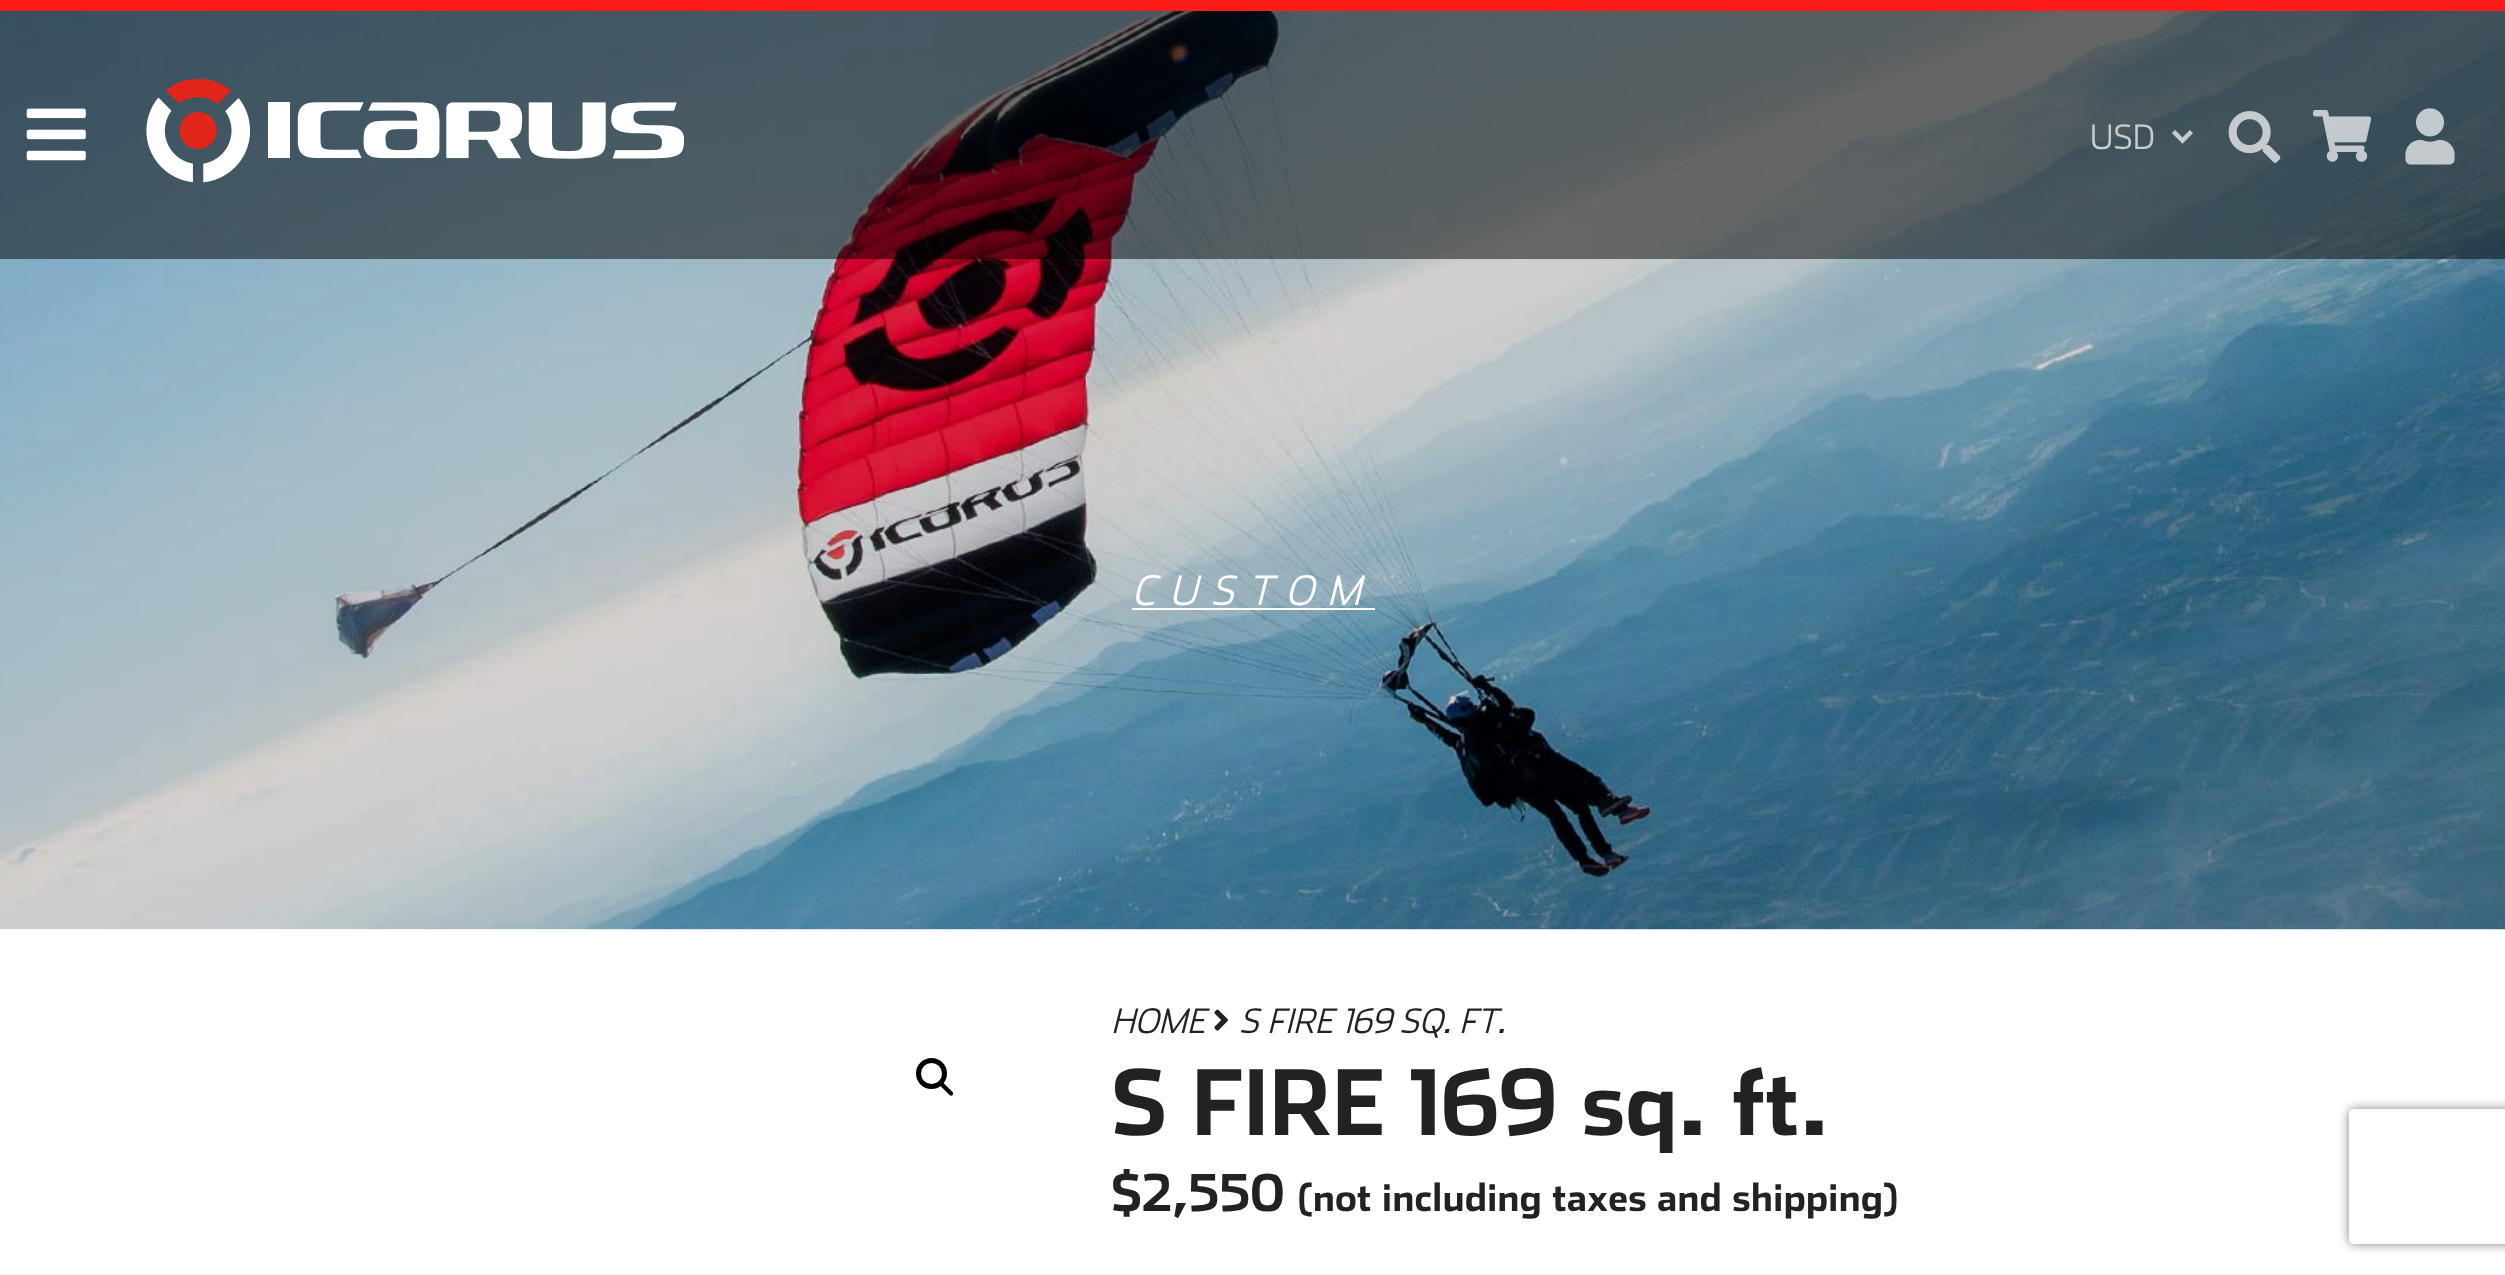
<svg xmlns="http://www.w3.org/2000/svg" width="2505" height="1275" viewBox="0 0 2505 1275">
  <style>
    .t1 { font: 300 33.75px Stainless; fill: #c7ccce; }
    .t2 { font: italic 300 40.5px Stainless; letter-spacing: 13.5px; fill: #fff; }
    .t3 { font: italic 300 33.75px Stainless; fill: #222; }
    .t4 { font: bold 90px Stainless; fill: #222; }
    .t5 { font: bold 50.5px Stainless; fill: #222; }
    .t6 { font: bold 38px Stainless; fill: #222; }
  </style>
  <defs>
    <clipPath id="clip1"><path d="M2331 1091H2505V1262H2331ZM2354 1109H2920C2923 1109 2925 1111 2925 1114V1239C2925 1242 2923 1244 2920 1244H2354C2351 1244 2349 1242 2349 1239V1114C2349 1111 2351 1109 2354 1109Z" clip-rule="evenodd"/></clipPath>
  </defs>
  <rect width="100%" height="100%" fill="#fff"/>
  <image x="0" y="11" width="2505" height="919" href="images/6.png"/>
  <rect x="0" y="11" width="2505" height="248" fill="#00000080"/>
  <rect x="0" y="0" width="2505" height="11" fill="#fd1b19"/>
  <image x="26" y="108" width="60" height="53" href="images/1.png"/>
  <image x="146" y="79" width="538" height="104" href="images/2.png"/>
  <path d="M2173.5 131.5L2182.5 140.5L2191.5 131.5" fill="none" stroke="#ffffffb3" stroke-width="4.5"/>
  <text x="2090" y="149" class="t1">USD</text>
  <image x="2228" y="111" width="53" height="52" href="images/3.png"/>
  <image x="2313" y="110" width="59" height="52" href="images/4.png"/>
  <image x="2405" y="108" width="50" height="57" href="images/5.png"/>
  <text x="1132" y="605" class="t2">CUSTOM</text>
  <rect x="1132" y="608" width="243" height="2" fill="#fff"/>
  <circle cx="931.5" cy="1073.5" r="13" fill="none" stroke="#000" stroke-width="5"/>
  <path d="M940 1082.5C941 1081.5 942.5 1081.5 943 1082.5L952.5 1092C953.5 1093 953.5 1094.5 952.5 1095C952 1096 950.5 1096 949.5 1095L940 1085.5C939 1084.5 939 1083.5 940 1082.5Z" fill="#000"/>
  <text x="1111" y="1033" class="t3">HOME</text>
  <image x="1214" y="1009" width="14" height="22" href="images/7.png"/>
  <text x="1239" y="1033" class="t3">S FIRE 169 SQ. FT.</text>
  <text x="1111" y="1135" class="t4">S FIRE 169 sq. ft.</text>
  <text x="1111" y="1211" class="t5">$2,550</text>
  <text x="1298" y="1211" class="t6">(not including taxes and shipping)</text>
  <g clip-path="url(#clip1)">
    <rect x="2349" y="1109" width="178" height="135" rx="5" fill="#808080" filter="blur(5.5px)"/>
  </g>
</svg>
